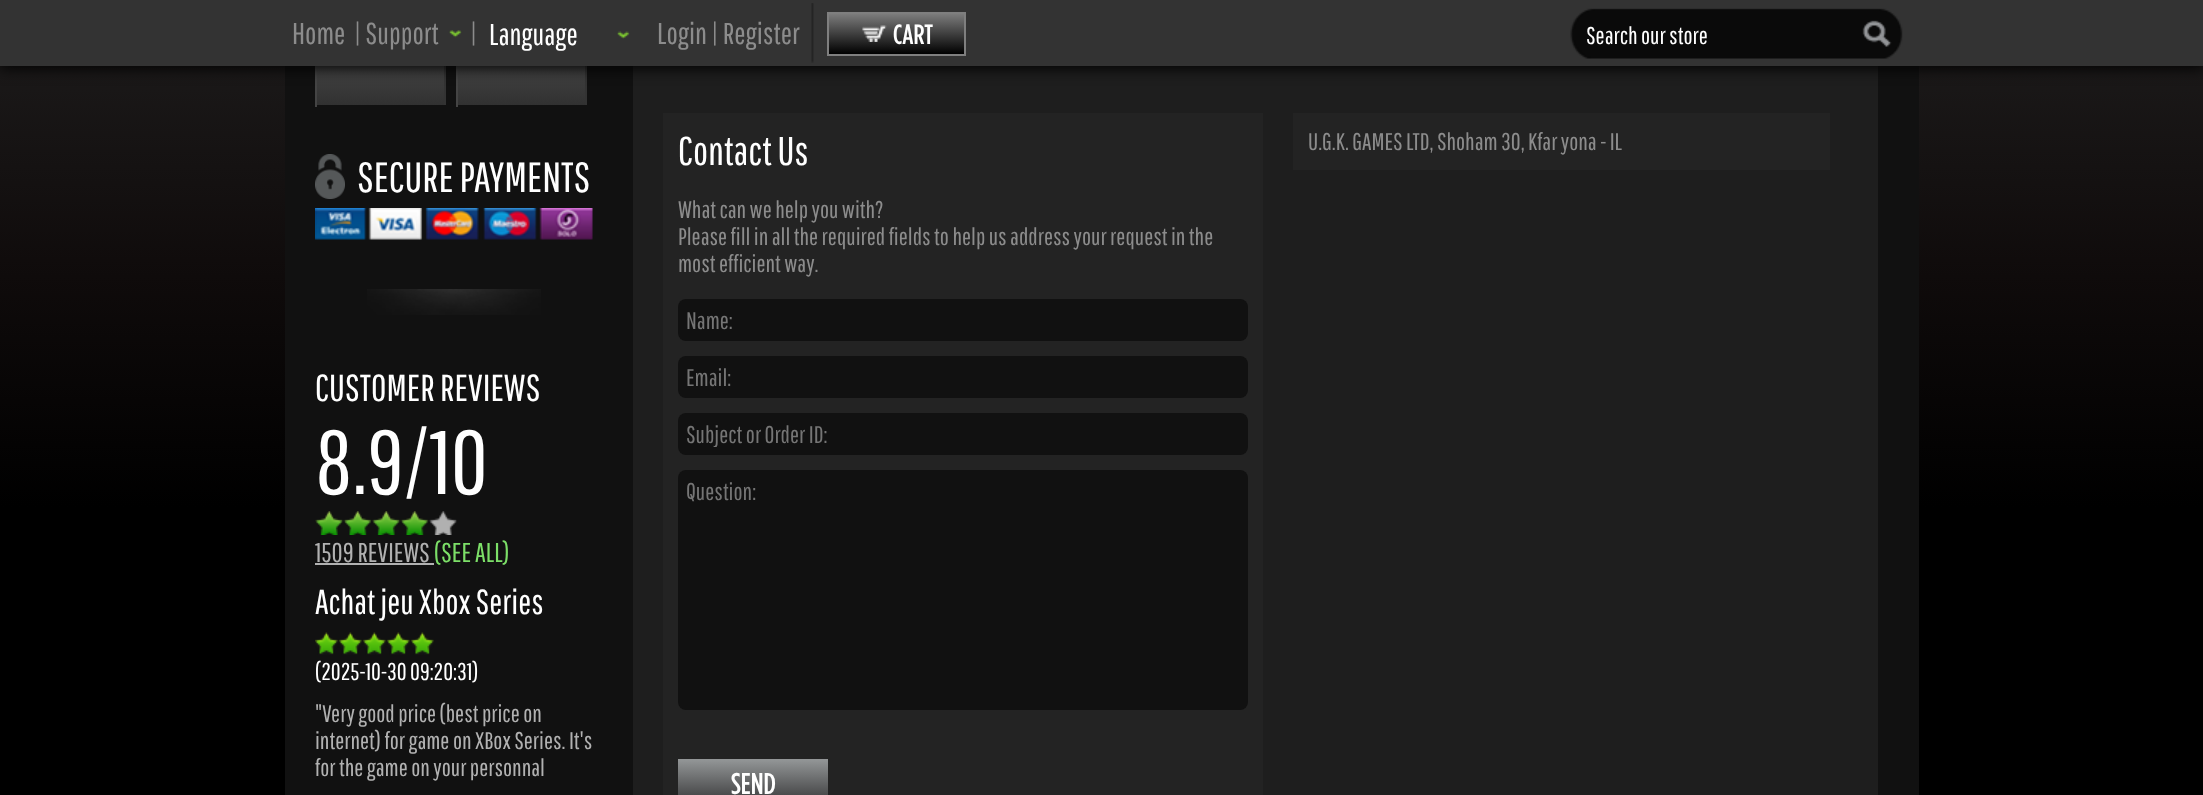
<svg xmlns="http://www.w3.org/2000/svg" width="2203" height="795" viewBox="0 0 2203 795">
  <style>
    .t1 { font: 30px Pathway Gothic One; fill: #8c8c8c; }
    .t2 { font: 30px Pathway Gothic One; fill: #fff; }
    .t3 { font: 500 28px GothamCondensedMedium; fill: #fff; }
    .t4 { font: 24px Pathway Gothic One; fill: #fff; }
    .t5 { font: 42px Pathway Gothic One; fill: #fff; }
    .t6 { font: 37.5px Pathway Gothic One; fill: #fff; }
    .t7 { font: 90px Pathway Gothic One; fill: #fff; }
    .t8 { font: 27px Pathway Gothic One; fill: #b1b1b1; }
    .t9 { font: 27px Pathway Gothic One; fill: #7cdf68; }
    .t10 { font: 34.5px Pathway Gothic One; fill: #fff; }
    .t11 { font: 24px Pathway Gothic One; fill: #b1b1b1; }
    .t12 { font: 40px Pathway Gothic One; fill: #fff; }
    .t13 { font: 24px Pathway Gothic One; fill: #8c8c8c; }
    .t14 { font: 24px Pathway Gothic One; fill: #757575; }
    .t15 { font: 500 30px GothamCondensedMedium; fill: #fff; }
  </style>
  <defs>
    <linearGradient id="g1" gradientUnits="userSpaceOnUse" x1="1102" y1="-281" x2="1102" y2="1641"><stop offset="0" stop-color="#2d2d2d"/><stop offset="0.07" stop-color="#262626"/><stop offset="0.29" stop-color="#0f0b0b"/><stop offset="0.41" stop-color="#000"/></linearGradient>
    <linearGradient id="g2" gradientUnits="userSpaceOnUse" x1="380" y1="-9" x2="380" y2="105"><stop offset="0" stop-color="#666"/><stop offset="1" stop-color="#313131"/></linearGradient>
    <linearGradient id="g3" gradientUnits="userSpaceOnUse" x1="521" y1="-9" x2="521" y2="105"><stop offset="0" stop-color="#666"/><stop offset="1" stop-color="#313131"/></linearGradient>
    <linearGradient id="g4" gradientUnits="userSpaceOnUse" x1="896" y1="13" x2="896" y2="54"><stop offset="0" stop-color="#7f7f7f"/><stop offset="1" stop-color="#000"/></linearGradient>
    <clipPath id="clip1"><rect x="686" y="420" width="555" height="27"/></clipPath>
    <linearGradient id="g5" gradientUnits="userSpaceOnUse" x1="753" y1="759" x2="753" y2="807"><stop offset="0" stop-color="#949798"/><stop offset="1" stop-color="#323233"/></linearGradient>
  </defs>
  <rect width="100%" height="100%" fill="#fff"/>
  <rect x="0" y="66" width="2203" height="729" fill="url(#g1)"/>
  <rect x="285" y="66" width="1634" height="729" fill="#111"/>
  <rect x="317" y="66" width="127" height="39" fill="url(#g2)"/>
  <rect x="444" y="66" width="2" height="41" fill="#333"/>
  <rect x="315" y="66" width="2" height="41" fill="#444"/>
  <rect x="458" y="66" width="127" height="39" fill="url(#g3)"/>
  <rect x="585" y="66" width="2" height="41" fill="#333"/>
  <rect x="456" y="66" width="2" height="41" fill="#444"/>
  <rect x="633" y="66" width="1245" height="729" fill="#1e1e1e"/>
  <rect x="-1" y="-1" width="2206" height="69" fill="#000" filter="blur(7.5px)"/>
  <rect x="0" y="0" width="2203" height="66" fill="#333"/>
  <text x="292" y="44" class="t1">Home</text>
  <text x="354" y="44" class="t1">| Support</text>
  <image x="449" y="30" width="13" height="8" href="images/1.png"/>
  <text x="470" y="44" class="t1">|</text>
  <text x="489" y="45" class="t2">Language</text>
  <image x="617" y="31" width="13" height="8" href="images/2.png"/>
  <text x="657" y="44" class="t1">Login | Register</text>
  <image x="811" y="3" width="3" height="60" href="images/3.png"/>
  <rect x="829" y="14" width="135" height="40" fill="url(#g4)"/>
  <rect x="828" y="13" width="137" height="42" fill="none" stroke="#7f7f7f" stroke-width="2"/>
  <image x="862" y="25" width="25" height="17" href="images/4.png"/>
  <text x="893" y="44" class="t3">CART</text>
  <image x="1570" y="8" width="333" height="51" href="images/5.png"/>
  <text x="1586" y="44" class="t4">Search our store</text>
  <image x="1862" y="20" width="30" height="27" href="images/6.png"/>
  <rect x="444" y="105" width="2" height="2" fill="#111"/>
  <rect x="585" y="105" width="2" height="2" fill="#111"/>
  <image x="315" y="154" width="30" height="45" href="images/7.png"/>
  <text x="357" y="192" class="t5">SECURE PAYMENTS</text>
  <image x="315" y="208" width="278" height="32" href="images/8.png"/>
  <image x="367" y="289" width="174" height="26" href="images/9.png"/>
  <text x="315" y="401" class="t6">CUSTOMER REVIEWS</text>
  <text x="315" y="494" class="t7">8.9/10</text>
  <image x="315" y="511" width="142" height="24" href="images/10.png"/>
  <text x="315" y="562" class="t8">1509 REVIEWS</text>
  <rect x="315" y="563" width="119" height="2" fill="#b1b1b1"/>
  <text x="434" y="562" class="t9">(SEE ALL)</text>
  <text x="315" y="614" class="t10">Achat jeu Xbox Series</text>
  <image x="315" y="632" width="119" height="23" href="images/11.png"/>
  <text x="315" y="680" class="t4">(2025-10-30 09:20:31)</text>
  <text x="315" y="722" class="t11">"Very good price (best price on</text>
  <text x="315" y="749" class="t11">internet) for game on XBox Series. It's</text>
  <text x="315" y="776" class="t11">for the game on your personnal</text>
  <rect x="663" y="113" width="600" height="682" fill="#232323"/>
  <text x="678" y="165" class="t12">Contact Us</text>
  <text x="678" y="218" class="t13">What can we help you with?</text>
  <text x="678" y="245" class="t13">Please fill in all the required fields to help us address your request in the</text>
  <text x="678" y="272" class="t13">most efficient way.</text>
  <rect x="678" y="299" width="570" height="42" rx="8" fill="#111"/>
  <text x="686" y="329" class="t14">Name:</text>
  <rect x="678" y="356" width="570" height="42" rx="8" fill="#111"/>
  <text x="686" y="386" class="t14">Email:</text>
  <rect x="678" y="413" width="570" height="42" rx="8" fill="#111"/>
  <g clip-path="url(#clip1)">
    <text x="686" y="443" class="t14">Subject or Order ID:</text>
  </g>
  <rect x="678" y="470" width="570" height="240" rx="8" fill="#111"/>
  <text x="686" y="500" class="t14">Question:</text>
  <rect x="678" y="759" width="150" height="36" fill="url(#g5)"/>
  <text x="731" y="794" class="t15">SEND</text>
  <rect x="1293" y="113" width="537" height="57" fill="#232323"/>
  <text x="1308" y="150" class="t13">U.G.K. GAMES LTD, Shoham 30, Kfar yona - IL</text>
</svg>
